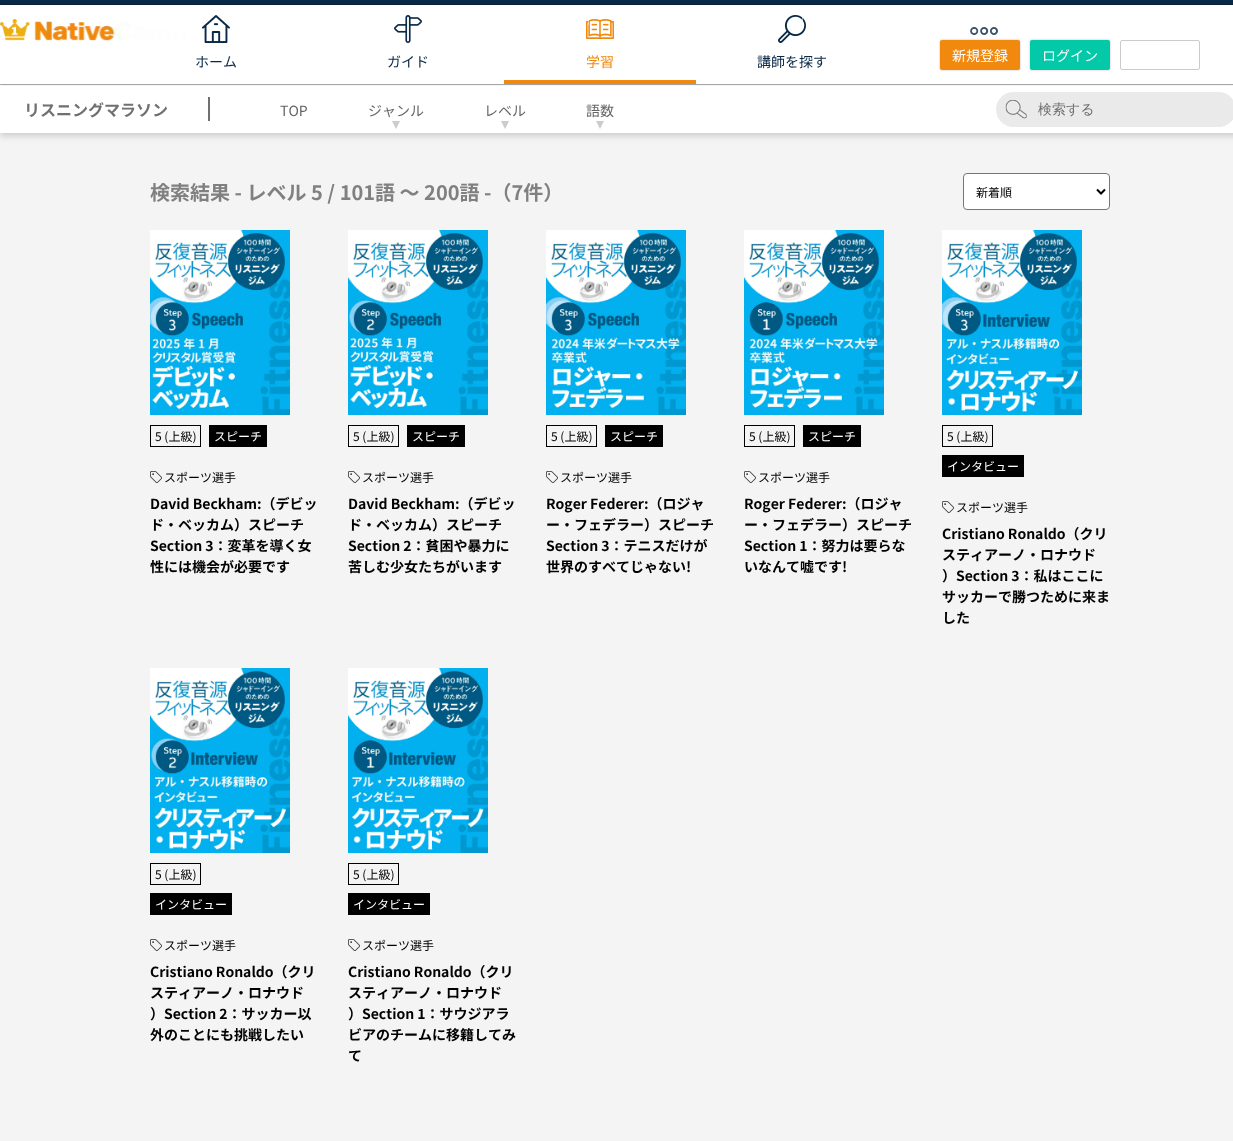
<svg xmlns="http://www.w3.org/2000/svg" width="1233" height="1141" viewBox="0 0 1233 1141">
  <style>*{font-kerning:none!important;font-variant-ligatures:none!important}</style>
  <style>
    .t1 { font: 14px Noto Sans JP; fill: #092846; }
    .t2 { font: 14px Noto Sans JP; fill: #f1890e; }
    .t3 { font: 14px Noto Sans JP; fill: #fff; }
    .t4 { font: bold 16px Noto Sans JP; fill: #707070; }
    .t5 { font: 14px Noto Sans JP; fill: #656565; }
    .t6 { font: 500 14px WenQuanYi Zen Hei; fill: #707070; }
    .t7 { font: bold 20px Noto Sans JP; fill: #808080; }
    .t8 { font: 12px Noto Sans JP; fill: #000; }
    .t9 { font: 12px Noto Sans JP; fill: #fff; }
    .t10 { font: bold 14px Noto Sans JP; fill: #000; }
  </style>
  <rect width="100%" height="100%" fill="#f4f4f4"/>
  <rect x="0" y="0" width="1233" height="5" fill="#092846"/>
  <rect x="0" y="84" width="1233" height="1" fill="#ccc"/>
  <rect x="0" y="88" width="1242" height="48" fill="#00000029" filter="blur(3px)"/>
  <rect x="0" y="85" width="1233" height="48" fill="#fff"/>
  <rect x="0" y="5" width="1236" height="79" fill="#00000080" filter="blur(1px)"/>
  <rect x="0" y="5" width="1233" height="79" fill="#fff"/>
  <image x="970" y="27" width="28" height="8" href="images/1.png"/>
  <image x="202" y="15" width="28" height="28" href="images/2.png"/>
  <text x="195" y="67" class="t1">ホーム</text>
  <image x="394" y="15" width="28" height="28" href="images/3.png"/>
  <text x="387" y="67" class="t1">ガイド</text>
  <image x="586" y="19" width="28" height="20" href="images/4.png"/>
  <text x="586" y="67" class="t2">学習</text>
  <image x="778" y="15" width="28" height="28" href="images/5.png"/>
  <text x="757" y="67" class="t1">講師を探す</text>
  <rect x="504" y="80" width="192" height="4" fill="#f1890e"/>
  <image x="0" y="19" width="185" height="22" href="images/6.png"/>
  <rect x="588" y="20" width="1" height="5" fill="#ffffff80"/>
  <rect x="802" y="10" width="1" height="15" fill="#ffffff80"/>
  <rect x="940" y="40" width="80" height="30" rx="2" fill="#00000040" filter="blur(1px)"/>
  <rect x="940" y="40" width="80" height="30" rx="2" fill="#f1890e"/>
  <text x="952" y="61" class="t3">新規登録</text>
  <rect x="1030" y="40" width="80" height="30" rx="2" fill="#00000040" filter="blur(1px)"/>
  <rect x="1030" y="40" width="80" height="30" rx="2" fill="#03c9a9"/>
  <text x="1042" y="61" class="t3">ログイン</text>
  <rect x="1120.5" y="40.5" width="79" height="29" rx="1.5" fill="none" stroke="#ccc"/>
  <rect x="208" y="97" width="2" height="24" fill="#707070"/>
  <text x="24" y="116" class="t4">リスニングマラソン</text>
  <text x="280" y="116" class="t5">TOP</text>
  <text x="368" y="116" class="t5">ジャンル</text>
  <path d="M392 121H400L396 129Z" fill="#ccc"/>
  <text x="484" y="116" class="t5">レベル</text>
  <path d="M501 121H509L505 129Z" fill="#ccc"/>
  <text x="586" y="116" class="t5">語数</text>
  <path d="M596 121H604L600 129Z" fill="#ccc"/>
  <rect x="996" y="92" width="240" height="35" rx="17.5" fill="#eaeaea"/>
  <image x="1005" y="100" width="22" height="19" href="images/7.png"/>
  <image x="1005" y="100" width="22" height="19" href="images/8.png"/>
  <text x="1038" y="114" class="t6">検索する</text>
  <text x="150" y="200" class="t7">検索結果 - レベル 5 / 101語 〜 200語 -（7件）</text>
  <rect x="963.5" y="173.5" width="146" height="36" rx="3.5" fill="#fff" stroke="#767676"/>
  <path d="M1097 189.5L1101 193.5L1105 189.5" fill="none" stroke="#000" stroke-width="2"/>
  <text x="976" y="197" class="t8">新着順</text>
  <image x="150" y="230" width="140" height="185" href="images/9.png"/>
  <rect x="150.5" y="425.5" width="50" height="21" fill="none" stroke="#000"/>
  <text x="155" y="441" class="t8">5 (上級)</text>
  <rect x="209" y="425" width="58" height="22" fill="#000"/>
  <text x="214" y="441" class="t9">スピーチ</text>
  <image x="150" y="471" width="12" height="12" href="images/10.png"/>
  <text x="164" y="482" class="t8">スポーツ選手</text>
  <text x="150" y="509" class="t10">David Beckham:（デビッ</text>
  <text x="150" y="530" class="t10">ド・ベッカム）スピーチ</text>
  <text x="150" y="551" class="t10">Section 3：変革を導く女</text>
  <text x="150" y="572" class="t10">性には機会が必要です</text>
  <image x="348" y="230" width="140" height="185" href="images/11.png"/>
  <rect x="348.5" y="425.5" width="50" height="21" fill="none" stroke="#000"/>
  <text x="353" y="441" class="t8">5 (上級)</text>
  <rect x="407" y="425" width="58" height="22" fill="#000"/>
  <text x="412" y="441" class="t9">スピーチ</text>
  <image x="348" y="471" width="12" height="12" href="images/10.png"/>
  <text x="362" y="482" class="t8">スポーツ選手</text>
  <text x="348" y="509" class="t10">David Beckham:（デビッ</text>
  <text x="348" y="530" class="t10">ド・ベッカム）スピーチ</text>
  <text x="348" y="551" class="t10">Section 2：貧困や暴力に</text>
  <text x="348" y="572" class="t10">苦しむ少女たちがいます</text>
  <image x="546" y="230" width="140" height="185" href="images/12.png"/>
  <rect x="546.5" y="425.5" width="50" height="21" fill="none" stroke="#000"/>
  <text x="551" y="441" class="t8">5 (上級)</text>
  <rect x="605" y="425" width="58" height="22" fill="#000"/>
  <text x="610" y="441" class="t9">スピーチ</text>
  <image x="546" y="471" width="12" height="12" href="images/10.png"/>
  <text x="560" y="482" class="t8">スポーツ選手</text>
  <text x="546" y="509" class="t10">Roger Federer:（ロジャ</text>
  <text x="546" y="530" class="t10">ー・フェデラー）スピーチ</text>
  <text x="546" y="551" class="t10">Section 3：テニスだけが</text>
  <text x="546" y="572" class="t10">世界のすべてじゃない!</text>
  <image x="744" y="230" width="140" height="185" href="images/13.png"/>
  <rect x="744.5" y="425.5" width="50" height="21" fill="none" stroke="#000"/>
  <text x="749" y="441" class="t8">5 (上級)</text>
  <rect x="803" y="425" width="58" height="22" fill="#000"/>
  <text x="808" y="441" class="t9">スピーチ</text>
  <image x="744" y="471" width="12" height="12" href="images/10.png"/>
  <text x="758" y="482" class="t8">スポーツ選手</text>
  <text x="744" y="509" class="t10">Roger Federer:（ロジャ</text>
  <text x="744" y="530" class="t10">ー・フェデラー）スピーチ</text>
  <text x="744" y="551" class="t10">Section 1：努力は要らな</text>
  <text x="744" y="572" class="t10">いなんて嘘です!</text>
  <image x="942" y="230" width="140" height="185" href="images/14.png"/>
  <rect x="942.5" y="425.5" width="50" height="21" fill="none" stroke="#000"/>
  <text x="947" y="441" class="t8">5 (上級)</text>
  <rect x="942" y="455" width="82" height="22" fill="#000"/>
  <text x="947" y="471" class="t9">インタビュー</text>
  <image x="942" y="501" width="12" height="12" href="images/10.png"/>
  <text x="956" y="512" class="t8">スポーツ選手</text>
  <text x="942" y="539" class="t10">Cristiano Ronaldo（クリ</text>
  <text x="942" y="560" class="t10">スティアーノ・ロナウド</text>
  <text x="942" y="581" class="t10">）Section 3：私はここに</text>
  <text x="942" y="602" class="t10">サッカーで勝つために来ま</text>
  <text x="942" y="623" class="t10">した</text>
  <image x="150" y="668" width="140" height="185" href="images/15.png"/>
  <rect x="150.5" y="863.5" width="50" height="21" fill="none" stroke="#000"/>
  <text x="155" y="879" class="t8">5 (上級)</text>
  <rect x="150" y="893" width="82" height="22" fill="#000"/>
  <text x="155" y="909" class="t9">インタビュー</text>
  <image x="150" y="939" width="12" height="12" href="images/10.png"/>
  <text x="164" y="950" class="t8">スポーツ選手</text>
  <text x="150" y="977" class="t10">Cristiano Ronaldo（クリ</text>
  <text x="150" y="998" class="t10">スティアーノ・ロナウド</text>
  <text x="150" y="1019" class="t10">）Section 2：サッカー以</text>
  <text x="150" y="1040" class="t10">外のことにも挑戦したい</text>
  <image x="348" y="668" width="140" height="185" href="images/16.png"/>
  <rect x="348.5" y="863.5" width="50" height="21" fill="none" stroke="#000"/>
  <text x="353" y="879" class="t8">5 (上級)</text>
  <rect x="348" y="893" width="82" height="22" fill="#000"/>
  <text x="353" y="909" class="t9">インタビュー</text>
  <image x="348" y="939" width="12" height="12" href="images/10.png"/>
  <text x="362" y="950" class="t8">スポーツ選手</text>
  <text x="348" y="977" class="t10">Cristiano Ronaldo（クリ</text>
  <text x="348" y="998" class="t10">スティアーノ・ロナウド</text>
  <text x="348" y="1019" class="t10">）Section 1：サウジアラ</text>
  <text x="348" y="1040" class="t10">ビアのチームに移籍してみ</text>
  <text x="348" y="1061" class="t10">て</text>
</svg>
